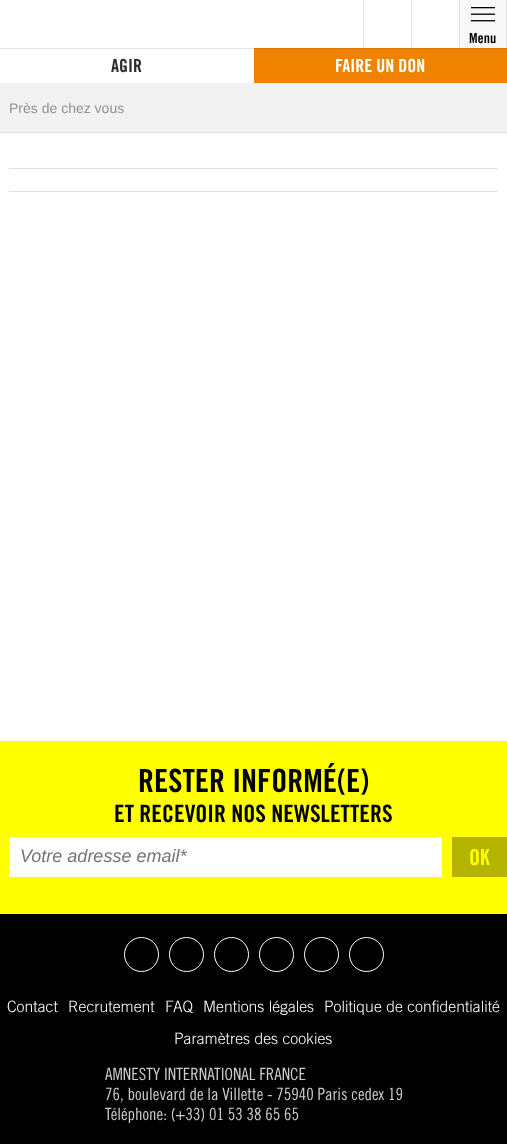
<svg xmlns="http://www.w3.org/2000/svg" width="507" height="1144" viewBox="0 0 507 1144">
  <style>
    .t1 { font: bold 14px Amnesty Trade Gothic; fill: #000; }
    .t2 { font: bold 18px Amnesty Trade Gothic; fill: #2b2b2b; }
    .t3 { font: bold 18px Amnesty Trade Gothic; fill: #fff; }
    .t4 { font: 14px Liberation Sans; fill: #919191; }
    .t5 { font: bold 32px Amnesty Trade Gothic; fill: #000; }
    .t6 { font: bold 24px Amnesty Trade Gothic; fill: #000; }
    .t7 { font: italic 18px Liberation Sans; fill: #757575; }
    .t8 { font: bold 22px Amnesty Trade Gothic; fill: #ff0; }
    .t9 { font: 300 15.75px Amnesty Trade Gothic; fill: #fff; }
    .t10 { font: 16.9px Amnesty Trade Gothic; fill: #ccc; }
  </style>
  <defs>
    <clipPath id="clip1"><rect x="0" y="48" width="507" height="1"/></clipPath>
  </defs>
  <rect width="100%" height="100%" fill="#fff"/>
  <rect x="254" y="48" width="253" height="35" fill="#ef8200"/>
  <g clip-path="url(#clip1)">
    <rect x="0" y="1" width="507" height="48" fill="#0000001a" filter="blur(0.5px)"/>
  </g>
  <rect x="363" y="0" width="1" height="48" fill="#e6e6e6"/>
  <rect x="411" y="0" width="1" height="48" fill="#e6e6e6"/>
  <rect x="460" y="0" width="46" height="48" fill="#f8f8f8"/>
  <rect x="506" y="0" width="1" height="48" fill="#dfdfdf"/>
  <rect x="459" y="0" width="1" height="48" fill="#dfdfdf"/>
  <image x="471" y="7" width="24" height="15" href="images/1.png"/>
  <text x="469" y="43" class="t1">Menu</text>
  <text x="111" y="72" class="t2">AGIR</text>
  <text x="335" y="72" class="t3">FAIRE UN DON</text>
  <rect x="0" y="83" width="507" height="49" fill="#f2f2f2"/>
  <rect x="0" y="132" width="507" height="1" fill="#e1e1e1"/>
  <text x="9" y="113" class="t4">Près de chez vous</text>
  <rect x="9" y="168" width="489" height="1" fill="#e1e1e1"/>
  <rect x="9" y="191" width="489" height="1" fill="#e1e1e1"/>
  <rect x="0" y="741" width="507" height="173" fill="#ff0"/>
  <text x="138" y="792" class="t5">RESTER INFORMÉ(E)</text>
  <text x="114" y="822" class="t6">ET RECEVOIR NOS NEWSLETTERS</text>
  <rect x="9" y="837" width="433" height="40" fill="#fff"/>
  <text x="20" y="862" class="t7">Votre adresse email*</text>
  <rect x="452" y="837" width="55" height="40" fill="#b3b300"/>
  <text x="469" y="865" class="t8">OK</text>
  <rect x="0" y="914" width="507" height="230" fill="#000"/>
  <circle cx="141.5" cy="954.5" r="17" fill="none" stroke="#fff"/>
  <circle cx="186.5" cy="954.5" r="17" fill="none" stroke="#fff"/>
  <circle cx="231.5" cy="954.5" r="17" fill="none" stroke="#fff"/>
  <circle cx="276.5" cy="954.5" r="17" fill="none" stroke="#fff"/>
  <circle cx="321.5" cy="954.5" r="17" fill="none" stroke="#fff"/>
  <circle cx="366.5" cy="954.5" r="17" fill="none" stroke="#fff"/>
  <text x="7" y="1012" class="t9">Contact</text>
  <text x="68" y="1012" class="t9">Recrutement</text>
  <text x="165" y="1012" class="t9">FAQ</text>
  <text x="203" y="1012" class="t9">Mentions légales</text>
  <text x="324" y="1012" class="t9">Politique de confidentialité</text>
  <text x="174" y="1044" class="t9">Paramètres des cookies</text>
  <text x="105" y="1080" class="t10">AMNESTY INTERNATIONAL FRANCE</text>
  <text x="105" y="1100" class="t10">76, boulevard de la Villette - 75940 Paris cedex 19</text>
  <text x="105" y="1120" class="t10">Téléphone: (+33) 01 53 38 65 65</text>
</svg>
